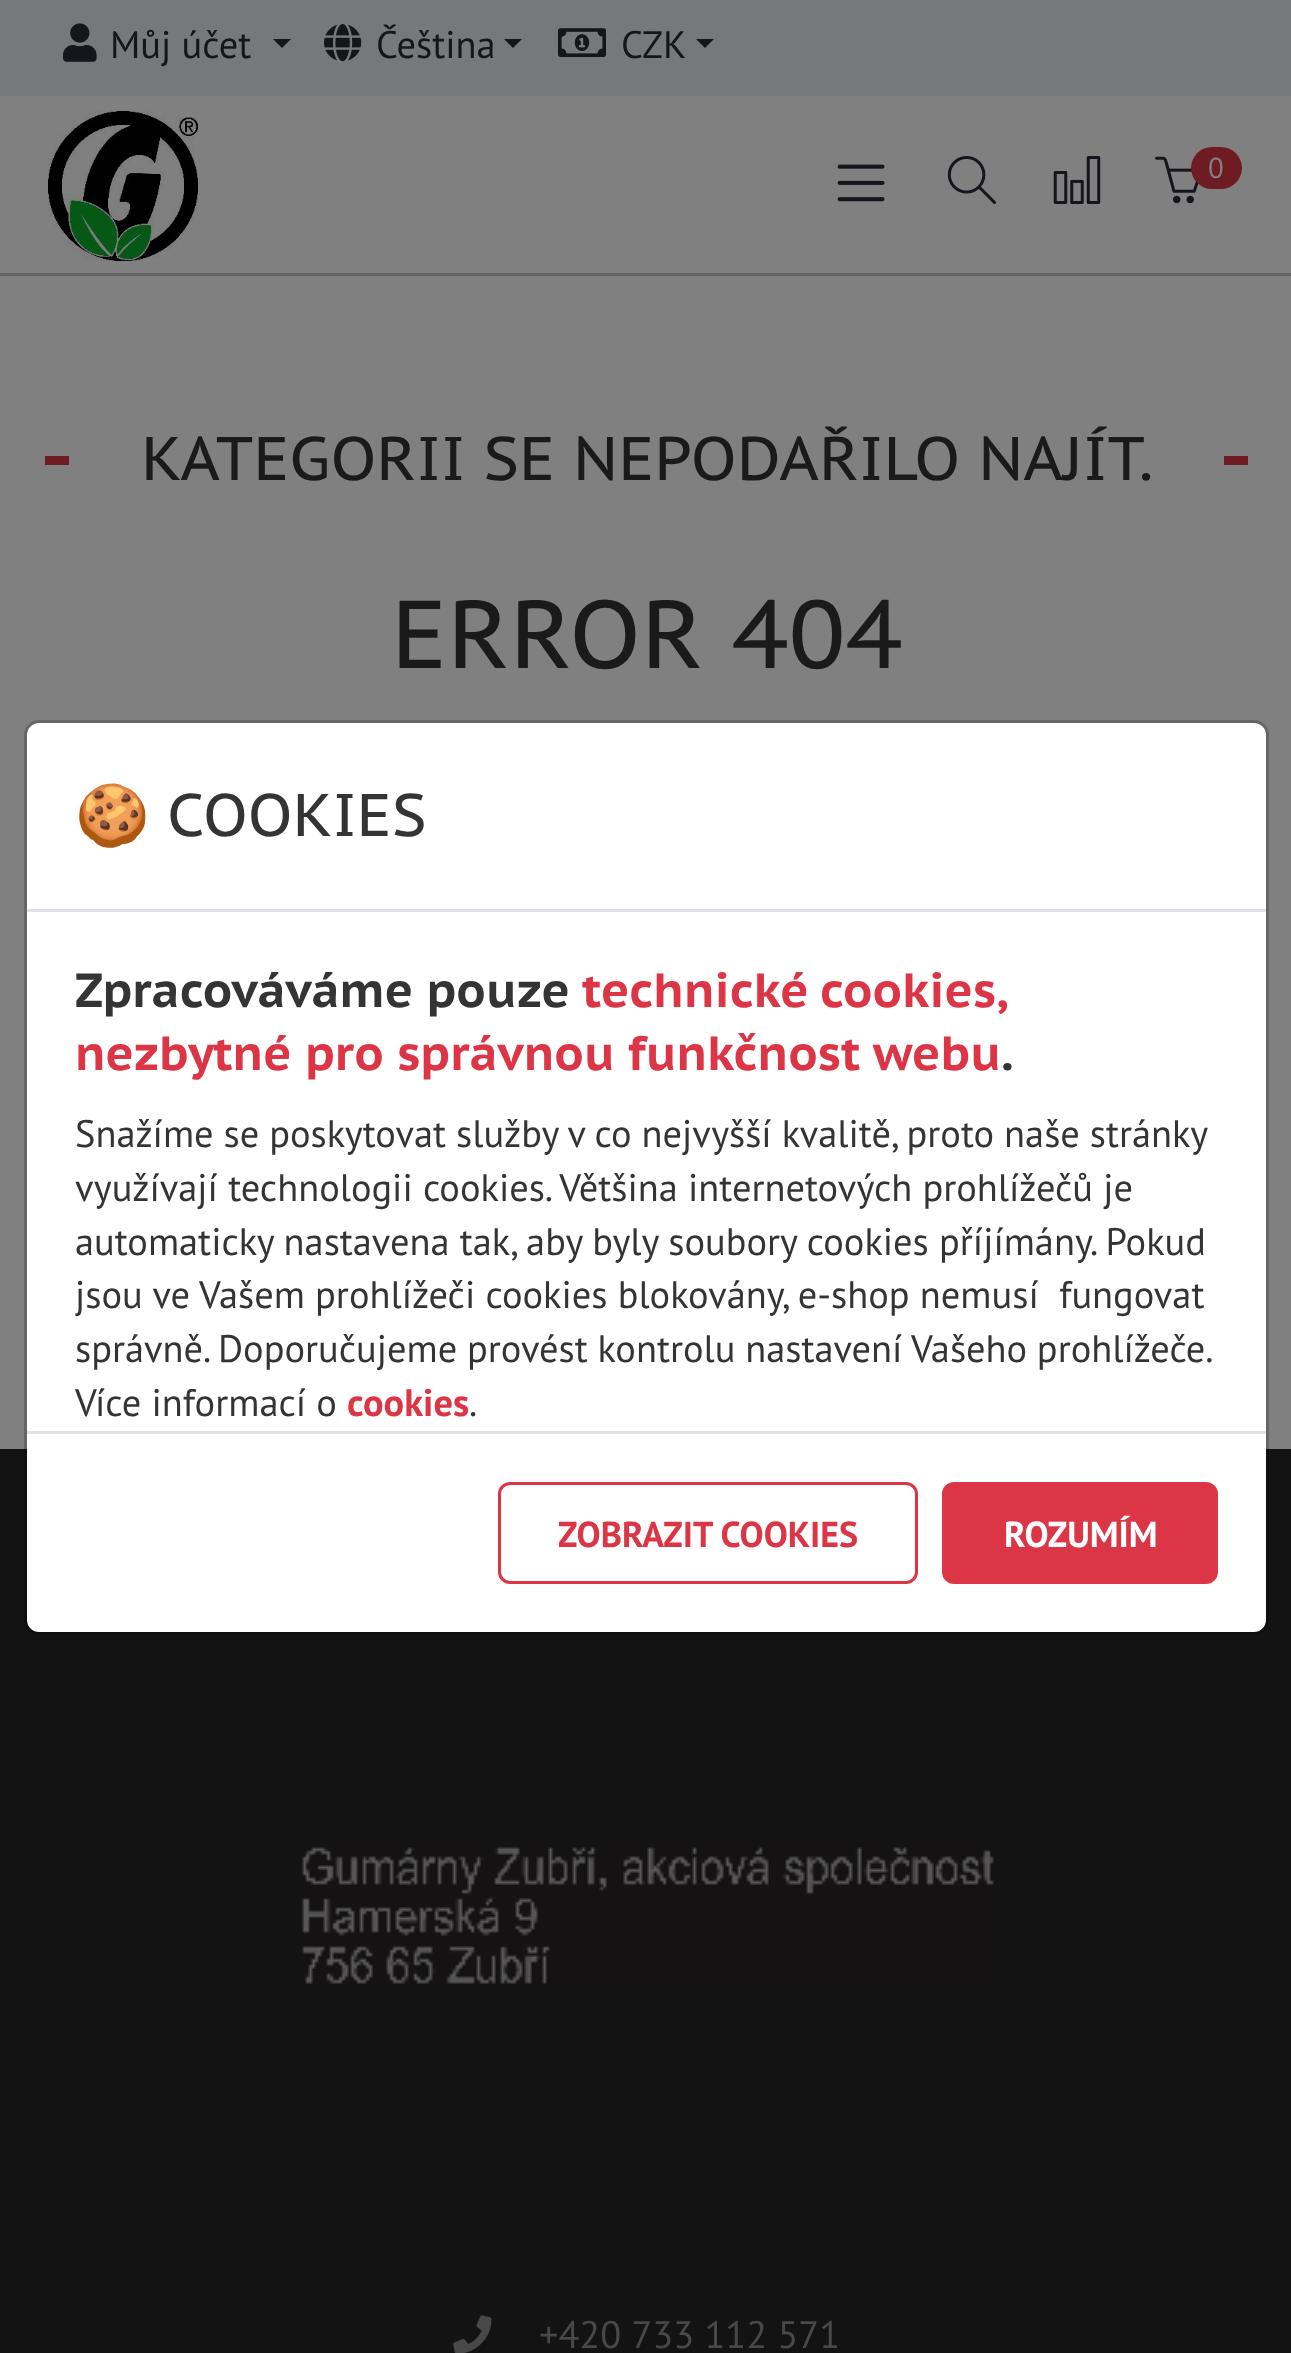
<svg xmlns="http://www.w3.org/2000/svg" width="1291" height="2353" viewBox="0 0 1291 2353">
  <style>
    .t1 { font: 38.4px PT Sans; fill: #14161c; }
    .t2 { font: 29px PT Sans; fill: #808080; }
    .t3 { font: 61.5px PT Sans Caption; fill: #1a1a1a; }
    .t4 { font: 96px PT Sans Caption; fill: #1a1a1a; }
    .t5 { font: 60px Noto Color Emoji; fill: #343434; }
    .t6 { font: 60px PT Sans Caption; fill: #343434; }
    .t7 { font: bold 48px PT Sans Caption; fill: #343434; }
    .t8 { font: bold 48px PT Sans Caption; fill: #dc3545; }
    .t9 { font: 38.4px PT Sans; fill: #343434; }
    .t10 { font: bold 38.4px PT Sans; fill: #dc3545; }
    .t11 { font: bold 36px PT Sans; fill: #dc3545; }
    .t12 { font: bold 36px PT Sans; fill: #fff; }
    .t13 { font: 38.4px PT Sans; fill: #484848; }
  </style>
  <rect width="100%" height="100%" fill="#808080"/>
  <rect x="0" y="0" width="1291" height="96" fill="#76797b"/>
  <image x="63" y="23" width="34" height="39" href="images/1.png"/>
  <text x="110" y="58" class="t1">Můj účet</text>
  <path d="M273 39H291L282 48Z" fill="#14161c"/>
  <image x="324" y="24" width="38" height="38" href="images/2.png"/>
  <text x="376" y="58" class="t1">Čeština</text>
  <path d="M504 39H522L513 48Z" fill="#14161c"/>
  <image x="558" y="28" width="48" height="29" href="images/3.png"/>
  <text x="621" y="58" class="t1">CZK</text>
  <path d="M696 39H714L705 48Z" fill="#14161c"/>
  <image x="48" y="111" width="150" height="150" href="images/4.png"/>
  <image x="837" y="164" width="48" height="38" href="images/5.png"/>
  <image x="947" y="156" width="49" height="48" href="images/6.png"/>
  <image x="1053" y="156" width="48" height="48" href="images/7.png"/>
  <image x="1155" y="156" width="44" height="48" href="images/8.png"/>
  <rect x="1191" y="147" width="51" height="42" rx="21" fill="#6e1b23"/>
  <text x="1208" y="178" class="t2">0</text>
  <rect x="0" y="273" width="1291" height="3" fill="#626669"/>
  <rect x="45" y="456" width="24" height="9" fill="#6e1b23"/>
  <text x="141" y="480" class="t3">KATEGORII SE NEPODAŘILO NAJÍT.</text>
  <rect x="1224" y="456" width="24" height="9" fill="#6e1b23"/>
  <text x="391" y="668" class="t4">ERROR 404</text>
  <rect x="0" y="1449" width="1291" height="904" fill="#131313"/>
  <rect x="27" y="723" width="1239" height="909" rx="12" fill="#fff"/>
  <rect x="25.5" y="721.5" width="1242" height="912" rx="13.5" fill="none" stroke="#00000033" stroke-width="3"/>
  <rect x="27" y="909" width="1239" height="3" fill="#dee2e6"/>
  <text x="75" y="836" class="t5">🍪</text>
  <text x="167" y="836" class="t6">COOKIES</text>
  <text x="75" y="1007" class="t7">Zpracováváme pouze</text>
  <text x="582" y="1007" word-spacing="-2" class="t8">technické cookies,</text>
  <text x="75" y="1070" class="t8">nezbytné pro správnou funkčnost webu</text>
  <text x="1001" y="1070" class="t7">.</text>
  <text x="75" y="1147" word-spacing="-0.25" class="t9">Snažíme se poskytovat služby v co nejvyšší kvalitě, proto naše stránky</text>
  <text x="75" y="1201" class="t9">využívají technologii cookies. Většina internetových prohlížečů je</text>
  <text x="75" y="1255" class="t9">automaticky nastavena tak, aby byly soubory cookies příjímány. Pokud</text>
  <text x="75" y="1308" class="t9" xml:space="preserve">jsou ve Vašem prohlížeči cookies blokovány, e-shop nemusí  fungovat</text>
  <text x="75" y="1362" word-spacing="-0.5" class="t9">správně. Doporučujeme provést kontrolu nastavení Vašeho prohlížeče.</text>
  <text x="75" y="1416" class="t9">Více informací o</text>
  <text x="347" y="1416" class="t10">cookies</text>
  <text x="469" y="1416" class="t9">.</text>
  <rect x="27" y="1431" width="1239" height="3" fill="#dee2e6"/>
  <rect x="499.5" y="1483.5" width="417" height="99" rx="10.5" fill="none" stroke="#dc3545" stroke-width="3"/>
  <text x="558" y="1547" class="t11">ZOBRAZIT COOKIES</text>
  <rect x="943.5" y="1483.5" width="273" height="99" rx="10.5" fill="#dc3545" stroke="#dc3545" stroke-width="3"/>
  <text x="1004" y="1547" class="t12">ROZUMÍM</text>
  <image x="302" y="1847" width="692" height="137" href="images/9.png"/>
  <image x="453" y="2315" width="39" height="38" href="images/10.png"/>
  <text x="539" y="2348" class="t13">+420 733 112 571</text>
</svg>
